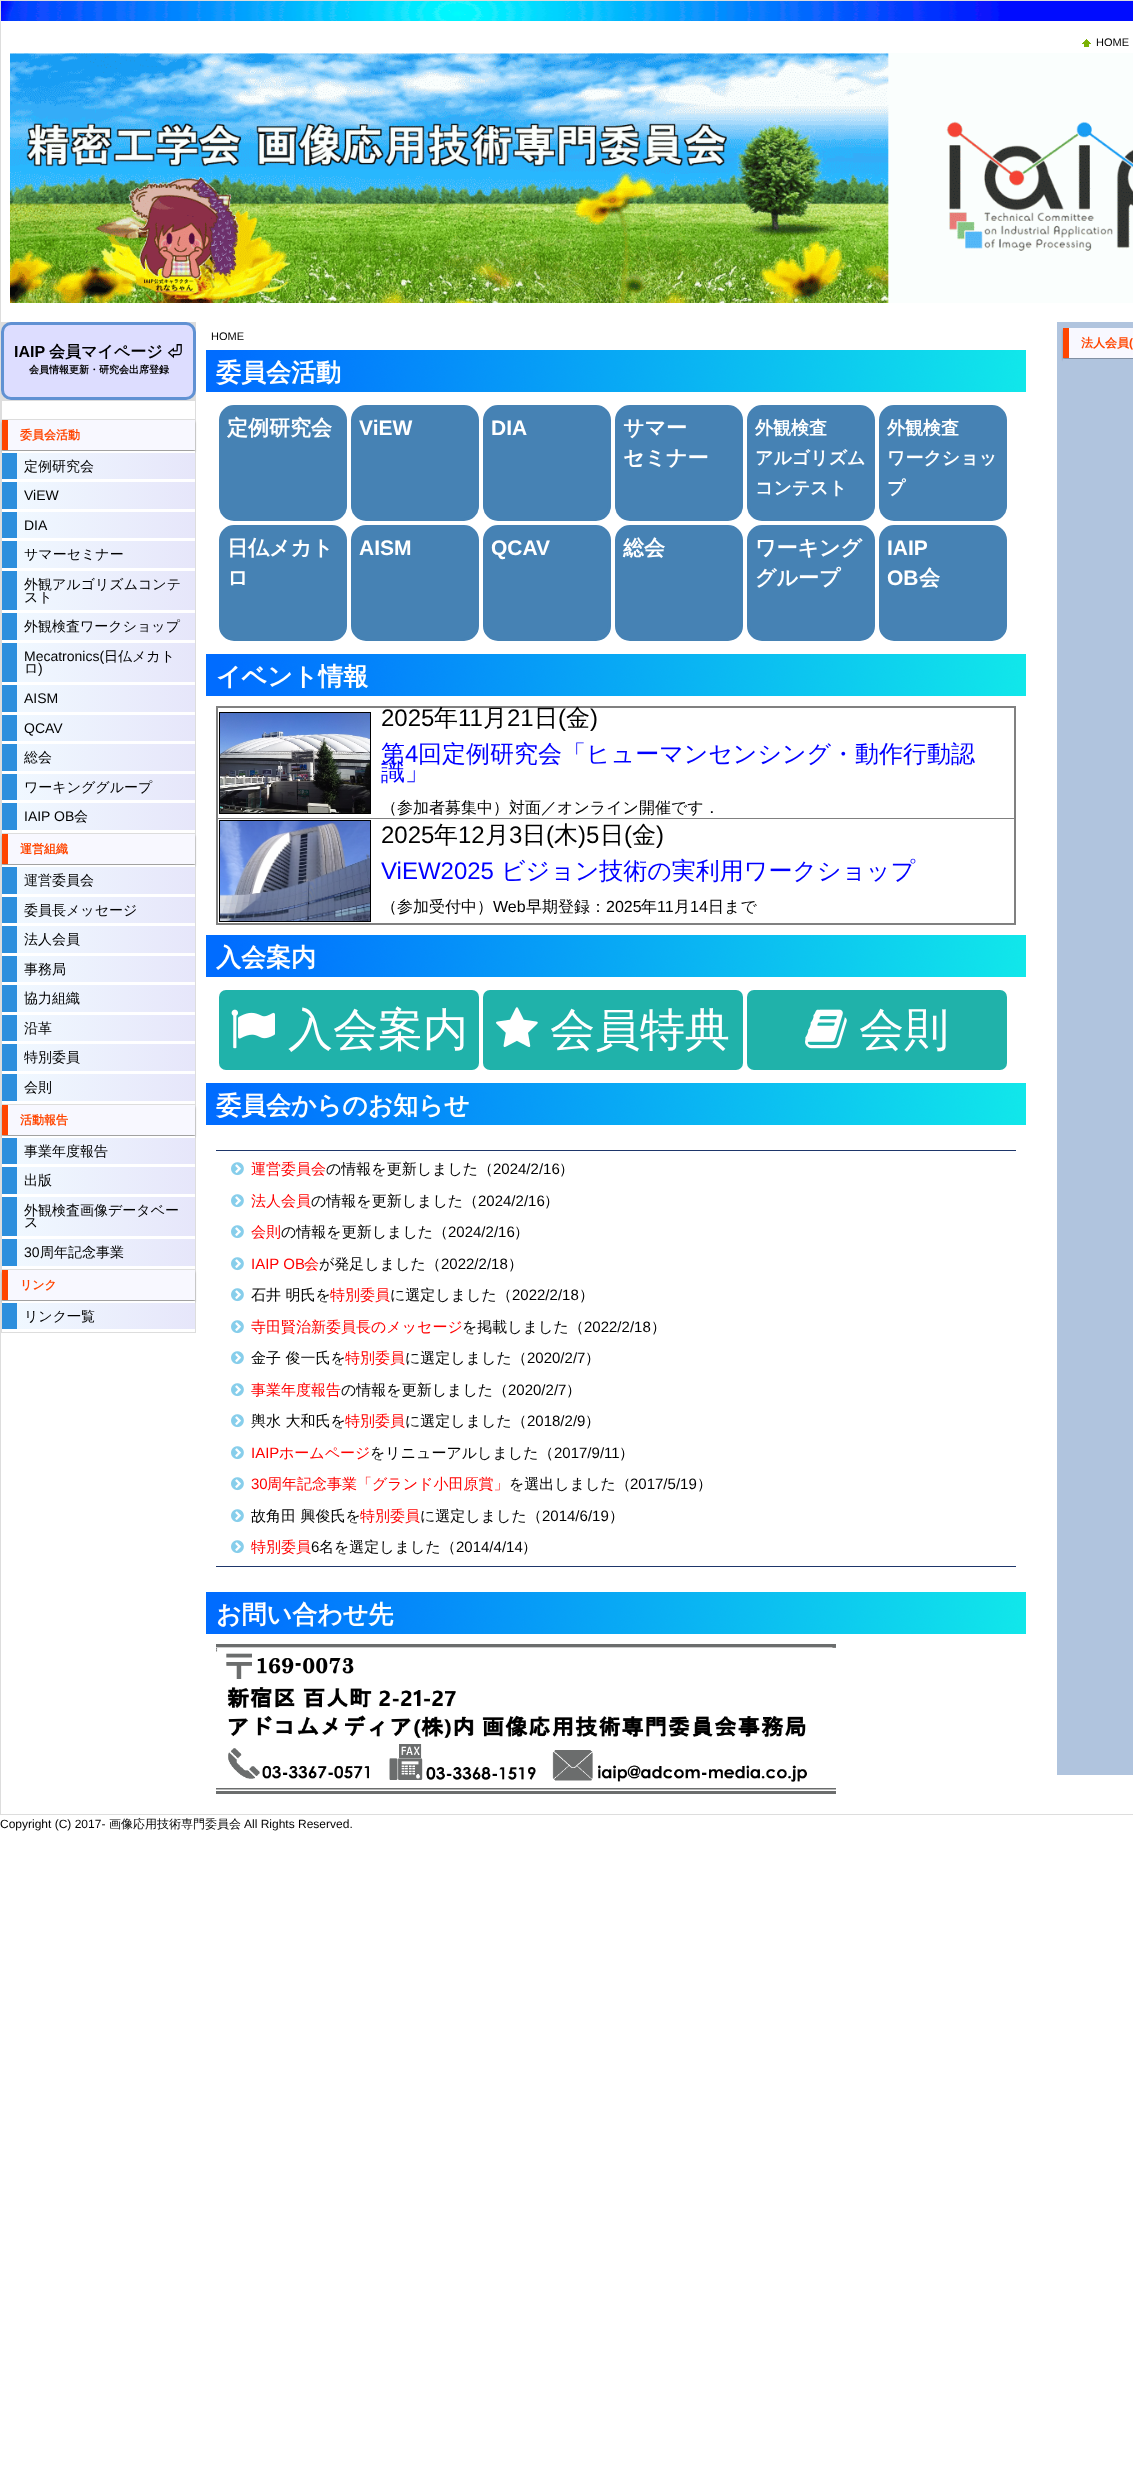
<svg xmlns="http://www.w3.org/2000/svg" width="1133" height="2491" viewBox="0 0 1133 2491">
  <style>
    .t1 { font: 11px Liberation Sans; fill: #000; }
    .t2 { font: bold 16px Liberation Sans; fill: #000; }
    .t3 { font: bold 16px WenQuanYi Zen Hei; fill: #000; }
    .t4 { font: bold 16px IPAPGothic; fill: #000; }
    .t5 { font: bold 10px WenQuanYi Zen Hei; fill: #000; }
    .t6 { font: bold 12px WenQuanYi Zen Hei; fill: #ff4500; }
    .t7 { font: 500 14px WenQuanYi Zen Hei; fill: #000; }
    .t8 { font: 14px Liberation Sans; fill: #000; }
    .t9 { font: bold 25px WenQuanYi Zen Hei; fill: #fff; }
    .t10 { font: bold 21px WenQuanYi Zen Hei; fill: #fff; }
    .t11 { font: bold 21px Liberation Sans; fill: #fff; }
    .t12 { font: bold 18px WenQuanYi Zen Hei; fill: #fff; }
    .t13 { font: 24px Liberation Sans; fill: #000; }
    .t14 { font: 500 24px WenQuanYi Zen Hei; fill: #000; }
    .t15 { font: 500 24px WenQuanYi Zen Hei; fill: #00f; }
    .t16 { font: 24px Liberation Sans; fill: #00f; }
    .t17 { font: 500 16px WenQuanYi Zen Hei; fill: #000; }
    .t18 { font: 16px Liberation Sans; fill: #000; }
    .t19 { font: 500 45px WenQuanYi Zen Hei; fill: #fff; }
    .t20 { font: 500 15px WenQuanYi Zen Hei; fill: #f00; }
    .t21 { font: 500 15px WenQuanYi Zen Hei; fill: #000; }
    .t22 { font: 15px Liberation Sans; fill: #000; }
    .t23 { font: 15px Liberation Sans; fill: #f00; }
    .t24 { font: bold 12px Liberation Sans; fill: #ff4500; }
    .t25 { font: 12px Liberation Sans; fill: #000; }
    .t26 { font: 500 12px WenQuanYi Zen Hei; fill: #000; }
  </style>
  <defs>
    <linearGradient id="g1" gradientUnits="userSpaceOnUse" x1="17" y1="466" x2="195" y2="466"><stop offset="0" stop-color="#f0f8ff"/><stop offset="1" stop-color="#e6e6fa"/></linearGradient>
    <linearGradient id="g2" gradientUnits="userSpaceOnUse" x1="17" y1="496" x2="195" y2="496"><stop offset="0" stop-color="#f0f8ff"/><stop offset="1" stop-color="#e6e6fa"/></linearGradient>
    <linearGradient id="g3" gradientUnits="userSpaceOnUse" x1="17" y1="525" x2="195" y2="525"><stop offset="0" stop-color="#f0f8ff"/><stop offset="1" stop-color="#e6e6fa"/></linearGradient>
    <linearGradient id="g4" gradientUnits="userSpaceOnUse" x1="17" y1="555" x2="195" y2="555"><stop offset="0" stop-color="#f0f8ff"/><stop offset="1" stop-color="#e6e6fa"/></linearGradient>
    <linearGradient id="g5" gradientUnits="userSpaceOnUse" x1="17" y1="591" x2="195" y2="591"><stop offset="0" stop-color="#f0f8ff"/><stop offset="1" stop-color="#e6e6fa"/></linearGradient>
    <linearGradient id="g6" gradientUnits="userSpaceOnUse" x1="17" y1="627" x2="195" y2="627"><stop offset="0" stop-color="#f0f8ff"/><stop offset="1" stop-color="#e6e6fa"/></linearGradient>
    <linearGradient id="g7" gradientUnits="userSpaceOnUse" x1="17" y1="663" x2="195" y2="663"><stop offset="0" stop-color="#f0f8ff"/><stop offset="1" stop-color="#e6e6fa"/></linearGradient>
    <linearGradient id="g8" gradientUnits="userSpaceOnUse" x1="17" y1="699" x2="195" y2="699"><stop offset="0" stop-color="#f0f8ff"/><stop offset="1" stop-color="#e6e6fa"/></linearGradient>
    <linearGradient id="g9" gradientUnits="userSpaceOnUse" x1="17" y1="728" x2="195" y2="728"><stop offset="0" stop-color="#f0f8ff"/><stop offset="1" stop-color="#e6e6fa"/></linearGradient>
    <linearGradient id="g10" gradientUnits="userSpaceOnUse" x1="17" y1="758" x2="195" y2="758"><stop offset="0" stop-color="#f0f8ff"/><stop offset="1" stop-color="#e6e6fa"/></linearGradient>
    <linearGradient id="g11" gradientUnits="userSpaceOnUse" x1="17" y1="787" x2="195" y2="787"><stop offset="0" stop-color="#f0f8ff"/><stop offset="1" stop-color="#e6e6fa"/></linearGradient>
    <linearGradient id="g12" gradientUnits="userSpaceOnUse" x1="17" y1="817" x2="195" y2="817"><stop offset="0" stop-color="#f0f8ff"/><stop offset="1" stop-color="#e6e6fa"/></linearGradient>
    <linearGradient id="g13" gradientUnits="userSpaceOnUse" x1="17" y1="881" x2="195" y2="881"><stop offset="0" stop-color="#f0f8ff"/><stop offset="1" stop-color="#e6e6fa"/></linearGradient>
    <linearGradient id="g14" gradientUnits="userSpaceOnUse" x1="17" y1="910" x2="195" y2="910"><stop offset="0" stop-color="#f0f8ff"/><stop offset="1" stop-color="#e6e6fa"/></linearGradient>
    <linearGradient id="g15" gradientUnits="userSpaceOnUse" x1="17" y1="940" x2="195" y2="940"><stop offset="0" stop-color="#f0f8ff"/><stop offset="1" stop-color="#e6e6fa"/></linearGradient>
    <linearGradient id="g16" gradientUnits="userSpaceOnUse" x1="17" y1="969" x2="195" y2="969"><stop offset="0" stop-color="#f0f8ff"/><stop offset="1" stop-color="#e6e6fa"/></linearGradient>
    <linearGradient id="g17" gradientUnits="userSpaceOnUse" x1="17" y1="999" x2="195" y2="999"><stop offset="0" stop-color="#f0f8ff"/><stop offset="1" stop-color="#e6e6fa"/></linearGradient>
    <linearGradient id="g18" gradientUnits="userSpaceOnUse" x1="17" y1="1028" x2="195" y2="1028"><stop offset="0" stop-color="#f0f8ff"/><stop offset="1" stop-color="#e6e6fa"/></linearGradient>
    <linearGradient id="g19" gradientUnits="userSpaceOnUse" x1="17" y1="1058" x2="195" y2="1058"><stop offset="0" stop-color="#f0f8ff"/><stop offset="1" stop-color="#e6e6fa"/></linearGradient>
    <linearGradient id="g20" gradientUnits="userSpaceOnUse" x1="17" y1="1088" x2="195" y2="1088"><stop offset="0" stop-color="#f0f8ff"/><stop offset="1" stop-color="#e6e6fa"/></linearGradient>
    <linearGradient id="g21" gradientUnits="userSpaceOnUse" x1="17" y1="1151" x2="195" y2="1151"><stop offset="0" stop-color="#f0f8ff"/><stop offset="1" stop-color="#e6e6fa"/></linearGradient>
    <linearGradient id="g22" gradientUnits="userSpaceOnUse" x1="17" y1="1181" x2="195" y2="1181"><stop offset="0" stop-color="#f0f8ff"/><stop offset="1" stop-color="#e6e6fa"/></linearGradient>
    <linearGradient id="g23" gradientUnits="userSpaceOnUse" x1="17" y1="1217" x2="195" y2="1217"><stop offset="0" stop-color="#f0f8ff"/><stop offset="1" stop-color="#e6e6fa"/></linearGradient>
    <linearGradient id="g24" gradientUnits="userSpaceOnUse" x1="17" y1="1253" x2="195" y2="1253"><stop offset="0" stop-color="#f0f8ff"/><stop offset="1" stop-color="#e6e6fa"/></linearGradient>
    <linearGradient id="g25" gradientUnits="userSpaceOnUse" x1="17" y1="1316" x2="195" y2="1316"><stop offset="0" stop-color="#f0f8ff"/><stop offset="1" stop-color="#e6e6fa"/></linearGradient>
  </defs>
  <rect width="100%" height="100%" fill="#fff"/>
  <rect x="0" y="0" width="1133" height="1815" fill="#ddd"/>
  <rect x="1" y="21" width="1132" height="1793" fill="#fff"/>
  <image x="1" y="1" width="1132" height="20" href="images/1.png"/>
  <image x="1082" y="39" width="9" height="8" href="images/2.png"/>
  <text x="1096" y="46" class="t1">HOME</text>
  <image x="10" y="53" width="1123" height="250" href="images/3.png"/>
  <rect x="1" y="322" width="195" height="1011" fill="#ddd"/>
  <rect x="2.5" y="323.5" width="192" height="75" rx="8.5" fill="#ddf" stroke="#6091d3" stroke-width="3"/>
  <text x="14" y="357" class="t2">IAIP</text>
  <text x="49" y="357" class="t3">会員マイページ</text>
  <text x="167" y="357" class="t4">⏎</text>
  <text x="29" y="373" class="t5">会員情報更新・研究会出席登録</text>
  <rect x="2" y="401" width="193" height="18" fill="#fff"/>
  <rect x="2" y="422" width="193" height="30" fill="#0000004a" filter="blur(1px)"/>
  <rect x="8" y="420" width="187" height="30" fill="#f8f8ff"/>
  <rect x="2" y="420" width="6" height="30" fill="#ff4500"/>
  <text x="20" y="439" class="t6">委員会活動</text>
  <rect x="2" y="451" width="193" height="382" fill="#fff"/>
  <rect x="17" y="453" width="178" height="26" fill="url(#g1)"/>
  <rect x="2" y="453" width="15" height="26" fill="#2d8fdd"/>
  <text x="24" y="471" class="t7">定例研究会</text>
  <rect x="17" y="482" width="178" height="27" fill="url(#g2)"/>
  <rect x="2" y="482" width="15" height="27" fill="#2d8fdd"/>
  <text x="24" y="500" class="t8">ViEW</text>
  <rect x="17" y="512" width="178" height="26" fill="url(#g3)"/>
  <rect x="2" y="512" width="15" height="26" fill="#2d8fdd"/>
  <text x="24" y="530" class="t8">DIA</text>
  <rect x="17" y="541" width="178" height="27" fill="url(#g4)"/>
  <rect x="2" y="541" width="15" height="27" fill="#2d8fdd"/>
  <text x="24" y="559" class="t7">サマーセミナー</text>
  <rect x="17" y="571" width="178" height="39" fill="url(#g5)"/>
  <rect x="2" y="571" width="15" height="39" fill="#2d8fdd"/>
  <text x="24" y="589" class="t7">外観アルゴリズムコンテ</text>
  <text x="24" y="602" class="t7">スト</text>
  <rect x="17" y="613" width="178" height="27" fill="url(#g6)"/>
  <rect x="2" y="613" width="15" height="27" fill="#2d8fdd"/>
  <text x="24" y="631" class="t7">外観検査ワークショップ</text>
  <rect x="17" y="643" width="178" height="39" fill="url(#g7)"/>
  <rect x="2" y="643" width="15" height="39" fill="#2d8fdd"/>
  <text x="24" y="661" class="t8">Mecatronics(</text>
  <text x="104" y="661" class="t7">日仏メカト</text>
  <text x="24" y="673" class="t7">ロ</text>
  <text x="38" y="673" class="t8">)</text>
  <rect x="17" y="685" width="178" height="27" fill="url(#g8)"/>
  <rect x="2" y="685" width="15" height="27" fill="#2d8fdd"/>
  <text x="24" y="703" class="t8">AISM</text>
  <rect x="17" y="715" width="178" height="26" fill="url(#g9)"/>
  <rect x="2" y="715" width="15" height="26" fill="#2d8fdd"/>
  <text x="24" y="733" class="t8">QCAV</text>
  <rect x="17" y="744" width="178" height="27" fill="url(#g10)"/>
  <rect x="2" y="744" width="15" height="27" fill="#2d8fdd"/>
  <text x="24" y="762" class="t7">総会</text>
  <rect x="17" y="774" width="178" height="26" fill="url(#g11)"/>
  <rect x="2" y="774" width="15" height="26" fill="#2d8fdd"/>
  <text x="24" y="792" class="t7">ワーキンググループ</text>
  <rect x="17" y="803" width="178" height="27" fill="url(#g12)"/>
  <rect x="2" y="803" width="15" height="27" fill="#2d8fdd"/>
  <text x="24" y="821" class="t8">IAIP OB</text>
  <text x="74" y="821" class="t7">会</text>
  <rect x="2" y="836" width="193" height="30" fill="#0000004a" filter="blur(1px)"/>
  <rect x="8" y="834" width="187" height="30" fill="#f8f8ff"/>
  <rect x="2" y="834" width="6" height="30" fill="#ff4500"/>
  <text x="20" y="853" class="t6">運営組織</text>
  <rect x="2" y="865" width="193" height="239" fill="#fff"/>
  <rect x="17" y="867" width="178" height="27" fill="url(#g13)"/>
  <rect x="2" y="867" width="15" height="27" fill="#2d8fdd"/>
  <text x="24" y="885" class="t7">運営委員会</text>
  <rect x="17" y="897" width="178" height="26" fill="url(#g14)"/>
  <rect x="2" y="897" width="15" height="26" fill="#2d8fdd"/>
  <text x="24" y="915" class="t7">委員長メッセージ</text>
  <rect x="17" y="926" width="178" height="27" fill="url(#g15)"/>
  <rect x="2" y="926" width="15" height="27" fill="#2d8fdd"/>
  <text x="24" y="944" class="t7">法人会員</text>
  <rect x="17" y="956" width="178" height="26" fill="url(#g16)"/>
  <rect x="2" y="956" width="15" height="26" fill="#2d8fdd"/>
  <text x="24" y="974" class="t7">事務局</text>
  <rect x="17" y="985" width="178" height="27" fill="url(#g17)"/>
  <rect x="2" y="985" width="15" height="27" fill="#2d8fdd"/>
  <text x="24" y="1003" class="t7">協力組織</text>
  <rect x="17" y="1015" width="178" height="26" fill="url(#g18)"/>
  <rect x="2" y="1015" width="15" height="26" fill="#2d8fdd"/>
  <text x="24" y="1033" class="t7">沿革</text>
  <rect x="17" y="1044" width="178" height="27" fill="url(#g19)"/>
  <rect x="2" y="1044" width="15" height="27" fill="#2d8fdd"/>
  <text x="24" y="1062" class="t7">特別委員</text>
  <rect x="17" y="1074" width="178" height="27" fill="url(#g20)"/>
  <rect x="2" y="1074" width="15" height="27" fill="#2d8fdd"/>
  <text x="24" y="1092" class="t7">会則</text>
  <rect x="2" y="1107" width="193" height="30" fill="#0000004a" filter="blur(1px)"/>
  <rect x="8" y="1105" width="187" height="30" fill="#f8f8ff"/>
  <rect x="2" y="1105" width="6" height="30" fill="#ff4500"/>
  <text x="20" y="1124" class="t6">活動報告</text>
  <rect x="2" y="1136" width="193" height="133" fill="#fff"/>
  <rect x="17" y="1138" width="178" height="26" fill="url(#g21)"/>
  <rect x="2" y="1138" width="15" height="26" fill="#2d8fdd"/>
  <text x="24" y="1156" class="t7">事業年度報告</text>
  <rect x="17" y="1167" width="178" height="27" fill="url(#g22)"/>
  <rect x="2" y="1167" width="15" height="27" fill="#2d8fdd"/>
  <text x="24" y="1185" class="t7">出版</text>
  <rect x="17" y="1197" width="178" height="39" fill="url(#g23)"/>
  <rect x="2" y="1197" width="15" height="39" fill="#2d8fdd"/>
  <text x="24" y="1215" class="t7">外観検査画像データベー</text>
  <text x="24" y="1227" class="t7">ス</text>
  <rect x="17" y="1239" width="178" height="27" fill="url(#g24)"/>
  <rect x="2" y="1239" width="15" height="27" fill="#2d8fdd"/>
  <text x="24" y="1257" class="t8">30</text>
  <text x="40" y="1257" class="t7">周年記念事業</text>
  <rect x="2" y="1272" width="193" height="30" fill="#0000004a" filter="blur(1px)"/>
  <rect x="8" y="1270" width="187" height="30" fill="#f8f8ff"/>
  <rect x="2" y="1270" width="6" height="30" fill="#ff4500"/>
  <text x="20" y="1289" class="t6">リンク</text>
  <rect x="2" y="1301" width="193" height="31" fill="#fff"/>
  <rect x="17" y="1303" width="178" height="26" fill="url(#g25)"/>
  <rect x="2" y="1303" width="15" height="26" fill="#2d8fdd"/>
  <text x="24" y="1321" class="t7">リンク一覧</text>
  <text x="211" y="340" class="t1">HOME</text>
  <image x="206" y="350" width="820" height="42" href="images/4.png"/>
  <text x="216" y="381" class="t9">委員会活動</text>
  <rect x="220.5" y="406.5" width="125" height="113" rx="13.5" fill="#4682b4" stroke="#4682b4" stroke-width="3"/>
  <text x="227" y="435" class="t10">定例研究会</text>
  <rect x="352.5" y="406.5" width="125" height="113" rx="13.5" fill="#4682b4" stroke="#4682b4" stroke-width="3"/>
  <text x="359" y="435" class="t11">ViEW</text>
  <rect x="484.5" y="406.5" width="125" height="113" rx="13.5" fill="#4682b4" stroke="#4682b4" stroke-width="3"/>
  <text x="491" y="435" class="t11">DIA</text>
  <rect x="616.5" y="406.5" width="125" height="113" rx="13.5" fill="#4682b4" stroke="#4682b4" stroke-width="3"/>
  <text x="623" y="435" class="t10">サマー</text>
  <text x="623" y="465" class="t10">セミナー</text>
  <rect x="748.5" y="406.5" width="125" height="113" rx="13.5" fill="#4682b4" stroke="#4682b4" stroke-width="3"/>
  <text x="755" y="434" class="t12">外観検査</text>
  <text x="755" y="464" class="t12">アルゴリズム</text>
  <text x="755" y="494" class="t12">コンテスト</text>
  <rect x="880.5" y="406.5" width="125" height="113" rx="13.5" fill="#4682b4" stroke="#4682b4" stroke-width="3"/>
  <text x="887" y="434" class="t12">外観検査</text>
  <text x="887" y="464" class="t12">ワークショッ</text>
  <text x="887" y="494" class="t12">プ</text>
  <rect x="220.5" y="526.5" width="125" height="113" rx="13.5" fill="#4682b4" stroke="#4682b4" stroke-width="3"/>
  <text x="227" y="555" class="t10">日仏メカト</text>
  <text x="227" y="585" class="t10">ロ</text>
  <rect x="352.5" y="526.5" width="125" height="113" rx="13.5" fill="#4682b4" stroke="#4682b4" stroke-width="3"/>
  <text x="359" y="555" class="t11">AISM</text>
  <rect x="484.5" y="526.5" width="125" height="113" rx="13.5" fill="#4682b4" stroke="#4682b4" stroke-width="3"/>
  <text x="491" y="555" class="t11">QCAV</text>
  <rect x="616.5" y="526.5" width="125" height="113" rx="13.5" fill="#4682b4" stroke="#4682b4" stroke-width="3"/>
  <text x="623" y="555" class="t10">総会</text>
  <rect x="748.5" y="526.5" width="125" height="113" rx="13.5" fill="#4682b4" stroke="#4682b4" stroke-width="3"/>
  <text x="755" y="555" class="t10">ワーキング</text>
  <text x="755" y="585" class="t10">グループ</text>
  <rect x="880.5" y="526.5" width="125" height="113" rx="13.5" fill="#4682b4" stroke="#4682b4" stroke-width="3"/>
  <text x="887" y="555" class="t11">IAIP</text>
  <text x="887" y="585" class="t11">OB</text>
  <text x="919" y="585" class="t10">会</text>
  <image x="206" y="654" width="820" height="42" href="images/4.png"/>
  <text x="216" y="685" class="t9">イベント情報</text>
  <rect x="216" y="706" width="800" height="2" fill="#808080"/>
  <rect x="217" y="818" width="799" height="1" fill="#808080"/>
  <rect x="1014" y="706" width="2" height="219" fill="#808080"/>
  <rect x="216" y="923" width="800" height="2" fill="#808080"/>
  <rect x="216" y="706" width="2" height="219" fill="#808080"/>
  <rect x="219.5" y="712.5" width="151" height="101" fill="none" stroke="#000"/>
  <image x="220" y="713" width="150" height="100" href="images/5.png"/>
  <text x="381" y="726" class="t13">2025</text>
  <text x="434" y="726" class="t14">年</text>
  <text x="458" y="726" class="t13">11</text>
  <text x="483" y="726" class="t14">月</text>
  <text x="507" y="726" class="t13">21</text>
  <text x="534" y="726" class="t14">日</text>
  <text x="558" y="726" class="t13">(</text>
  <text x="566" y="726" class="t14">金</text>
  <text x="590" y="726" class="t13">)</text>
  <text x="381" y="762" class="t15">第</text>
  <text x="405" y="762" class="t16">4</text>
  <text x="418" y="762" class="t15">回定例研究会「ヒューマンセンシング・動作行動認</text>
  <text x="381" y="780" class="t15">識」</text>
  <text x="381" y="813" class="t17">（参加者募集中）対面／オンライン開催です．</text>
  <rect x="219.5" y="820.5" width="151" height="101" fill="none" stroke="#000"/>
  <image x="220" y="821" width="150" height="100" href="images/6.png"/>
  <text x="381" y="843" class="t13">2025</text>
  <text x="434" y="843" class="t14">年</text>
  <text x="458" y="843" class="t13">12</text>
  <text x="485" y="843" class="t14">月</text>
  <text x="509" y="843" class="t13">3</text>
  <text x="522" y="843" class="t14">日</text>
  <text x="546" y="843" class="t13">(</text>
  <text x="554" y="843" class="t14">木</text>
  <text x="578" y="843" class="t13">)5</text>
  <text x="600" y="843" class="t14">日</text>
  <text x="624" y="843" class="t13">(</text>
  <text x="632" y="843" class="t14">金</text>
  <text x="656" y="843" class="t13">)</text>
  <text x="381" y="879" class="t16">ViEW2025</text>
  <text x="501" y="879" class="t15">ビジョン技術の実利用ワークショップ</text>
  <text x="381" y="912" class="t17">（参加受付中）</text>
  <text x="493" y="912" class="t18">Web</text>
  <text x="526" y="912" class="t17">早期登録：</text>
  <text x="606" y="912" class="t18">2025</text>
  <text x="641" y="912" class="t17">年</text>
  <text x="657" y="912" class="t18">11</text>
  <text x="674" y="912" class="t17">月</text>
  <text x="690" y="912" class="t18">14</text>
  <text x="708" y="912" class="t17">日まで</text>
  <image x="206" y="935" width="820" height="42" href="images/4.png"/>
  <text x="216" y="966" class="t9">入会案内</text>
  <rect x="219" y="990" width="260" height="80" rx="7" fill="#20b2aa"/>
  <image x="231" y="1009" width="44" height="40" href="images/7.png"/>
  <text x="288" y="1045" class="t19">入会案内</text>
  <rect x="483" y="990" width="260" height="80" rx="7" fill="#20b2aa"/>
  <image x="496" y="1007" width="42" height="41" href="images/8.png"/>
  <text x="550" y="1045" class="t19">会員特典</text>
  <rect x="747" y="990" width="260" height="80" rx="7" fill="#20b2aa"/>
  <image x="805" y="1009" width="42" height="40" href="images/9.png"/>
  <text x="859" y="1045" class="t19">会則</text>
  <image x="206" y="1083" width="820" height="42" href="images/4.png"/>
  <text x="216" y="1114" class="t9">委員会からのお知らせ</text>
  <rect x="216" y="1150" width="800" height="1" fill="#1e366a"/>
  <rect x="216" y="1566" width="800" height="1" fill="#1e366a"/>
  <image x="231" y="1162" width="13" height="14" href="images/10.png"/>
  <text x="251" y="1174" class="t20">運営委員会</text>
  <text x="326" y="1174" class="t21">の情報を更新しました（</text>
  <text x="493" y="1174" class="t22">2024/2/16</text>
  <text x="559" y="1174" class="t21">）</text>
  <image x="231" y="1194" width="13" height="14" href="images/10.png"/>
  <text x="251" y="1206" class="t20">法人会員</text>
  <text x="311" y="1206" class="t21">の情報を更新しました（</text>
  <text x="478" y="1206" class="t22">2024/2/16</text>
  <text x="544" y="1206" class="t21">）</text>
  <image x="231" y="1225" width="13" height="14" href="images/10.png"/>
  <text x="251" y="1237" class="t20">会則</text>
  <text x="281" y="1237" class="t21">の情報を更新しました（</text>
  <text x="448" y="1237" class="t22">2024/2/16</text>
  <text x="514" y="1237" class="t21">）</text>
  <image x="231" y="1257" width="13" height="14" href="images/10.png"/>
  <text x="251" y="1269" class="t23">IAIP OB</text>
  <text x="304" y="1269" class="t20">会</text>
  <text x="319" y="1269" class="t21">が発足しました（</text>
  <text x="441" y="1269" class="t22">2022/2/18</text>
  <text x="508" y="1269" class="t21">）</text>
  <image x="231" y="1288" width="13" height="14" href="images/10.png"/>
  <text x="251" y="1300" class="t21">石井 明氏を</text>
  <text x="330" y="1300" class="t20">特別委員</text>
  <text x="390" y="1300" class="t21">に選定しました（</text>
  <text x="512" y="1300" class="t22">2022/2/18</text>
  <text x="579" y="1300" class="t21">）</text>
  <image x="231" y="1320" width="13" height="14" href="images/10.png"/>
  <text x="251" y="1332" class="t20">寺田賢治新委員長のメッセージ</text>
  <text x="462" y="1332" class="t21">を掲載しました（</text>
  <text x="584" y="1332" class="t22">2022/2/18</text>
  <text x="651" y="1332" class="t21">）</text>
  <image x="231" y="1351" width="13" height="14" href="images/10.png"/>
  <text x="251" y="1363" class="t21">金子 俊一氏を</text>
  <text x="345" y="1363" class="t20">特別委員</text>
  <text x="405" y="1363" class="t21">に選定しました（</text>
  <text x="527" y="1363" class="t22">2020/2/7</text>
  <text x="585" y="1363" class="t21">）</text>
  <image x="231" y="1383" width="13" height="14" href="images/10.png"/>
  <text x="251" y="1395" class="t20">事業年度報告</text>
  <text x="341" y="1395" class="t21">の情報を更新しました（</text>
  <text x="508" y="1395" class="t22">2020/2/7</text>
  <text x="566" y="1395" class="t21">）</text>
  <image x="231" y="1414" width="13" height="14" href="images/10.png"/>
  <text x="251" y="1426" class="t21">輿水 大和氏を</text>
  <text x="345" y="1426" class="t20">特別委員</text>
  <text x="405" y="1426" class="t21">に選定しました（</text>
  <text x="527" y="1426" class="t22">2018/2/9</text>
  <text x="585" y="1426" class="t21">）</text>
  <image x="231" y="1446" width="13" height="14" href="images/10.png"/>
  <text x="251" y="1458" class="t23">IAIP</text>
  <text x="279" y="1458" class="t20">ホームページ</text>
  <text x="370" y="1458" class="t21">をリニューアルしました（</text>
  <text x="554" y="1458" class="t22">2017/9/11</text>
  <text x="619" y="1458" class="t21">）</text>
  <image x="231" y="1477" width="13" height="14" href="images/10.png"/>
  <text x="251" y="1489" class="t23">30</text>
  <text x="267" y="1489" class="t20">周年記念事業「グランド小田原賞」</text>
  <text x="509" y="1489" class="t21">を選出しました（</text>
  <text x="630" y="1489" class="t22">2017/5/19</text>
  <text x="697" y="1489" class="t21">）</text>
  <image x="231" y="1509" width="13" height="14" href="images/10.png"/>
  <text x="251" y="1521" class="t21">故角田 興俊氏を</text>
  <text x="360" y="1521" class="t20">特別委員</text>
  <text x="420" y="1521" class="t21">に選定しました（</text>
  <text x="542" y="1521" class="t22">2014/6/19</text>
  <text x="609" y="1521" class="t21">）</text>
  <image x="231" y="1540" width="13" height="14" href="images/10.png"/>
  <text x="251" y="1552" class="t20">特別委員</text>
  <text x="311" y="1552" class="t22">6</text>
  <text x="319" y="1552" class="t21">名を選定しました（</text>
  <text x="456" y="1552" class="t22">2014/4/14</text>
  <text x="522" y="1552" class="t21">）</text>
  <image x="206" y="1592" width="820" height="42" href="images/4.png"/>
  <text x="216" y="1623" class="t9">お問い合わせ先</text>
  <image x="216" y="1644" width="620" height="150" href="images/11.png"/>
  <rect x="1057" y="322" width="76" height="1453" fill="#b0c4de"/>
  <rect x="1063" y="330" width="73" height="30" fill="#0000004a" filter="blur(1px)"/>
  <rect x="1069" y="328" width="64" height="30" fill="#f8f8ff"/>
  <rect x="1063" y="328" width="6" height="30" fill="#ff4500"/>
  <text x="1081" y="347" class="t6">法人会員</text>
  <text x="1129" y="347" class="t24">(</text>
  <rect x="1063" y="359" width="70" height="3" fill="#b0c4de"/>
  <text x="0" y="1828" class="t25">Copyright (C) 2017-</text>
  <text x="109" y="1828" class="t26">画像応用技術専門委員会</text>
  <text x="244" y="1828" class="t25">All Rights Reserved.</text>
</svg>
